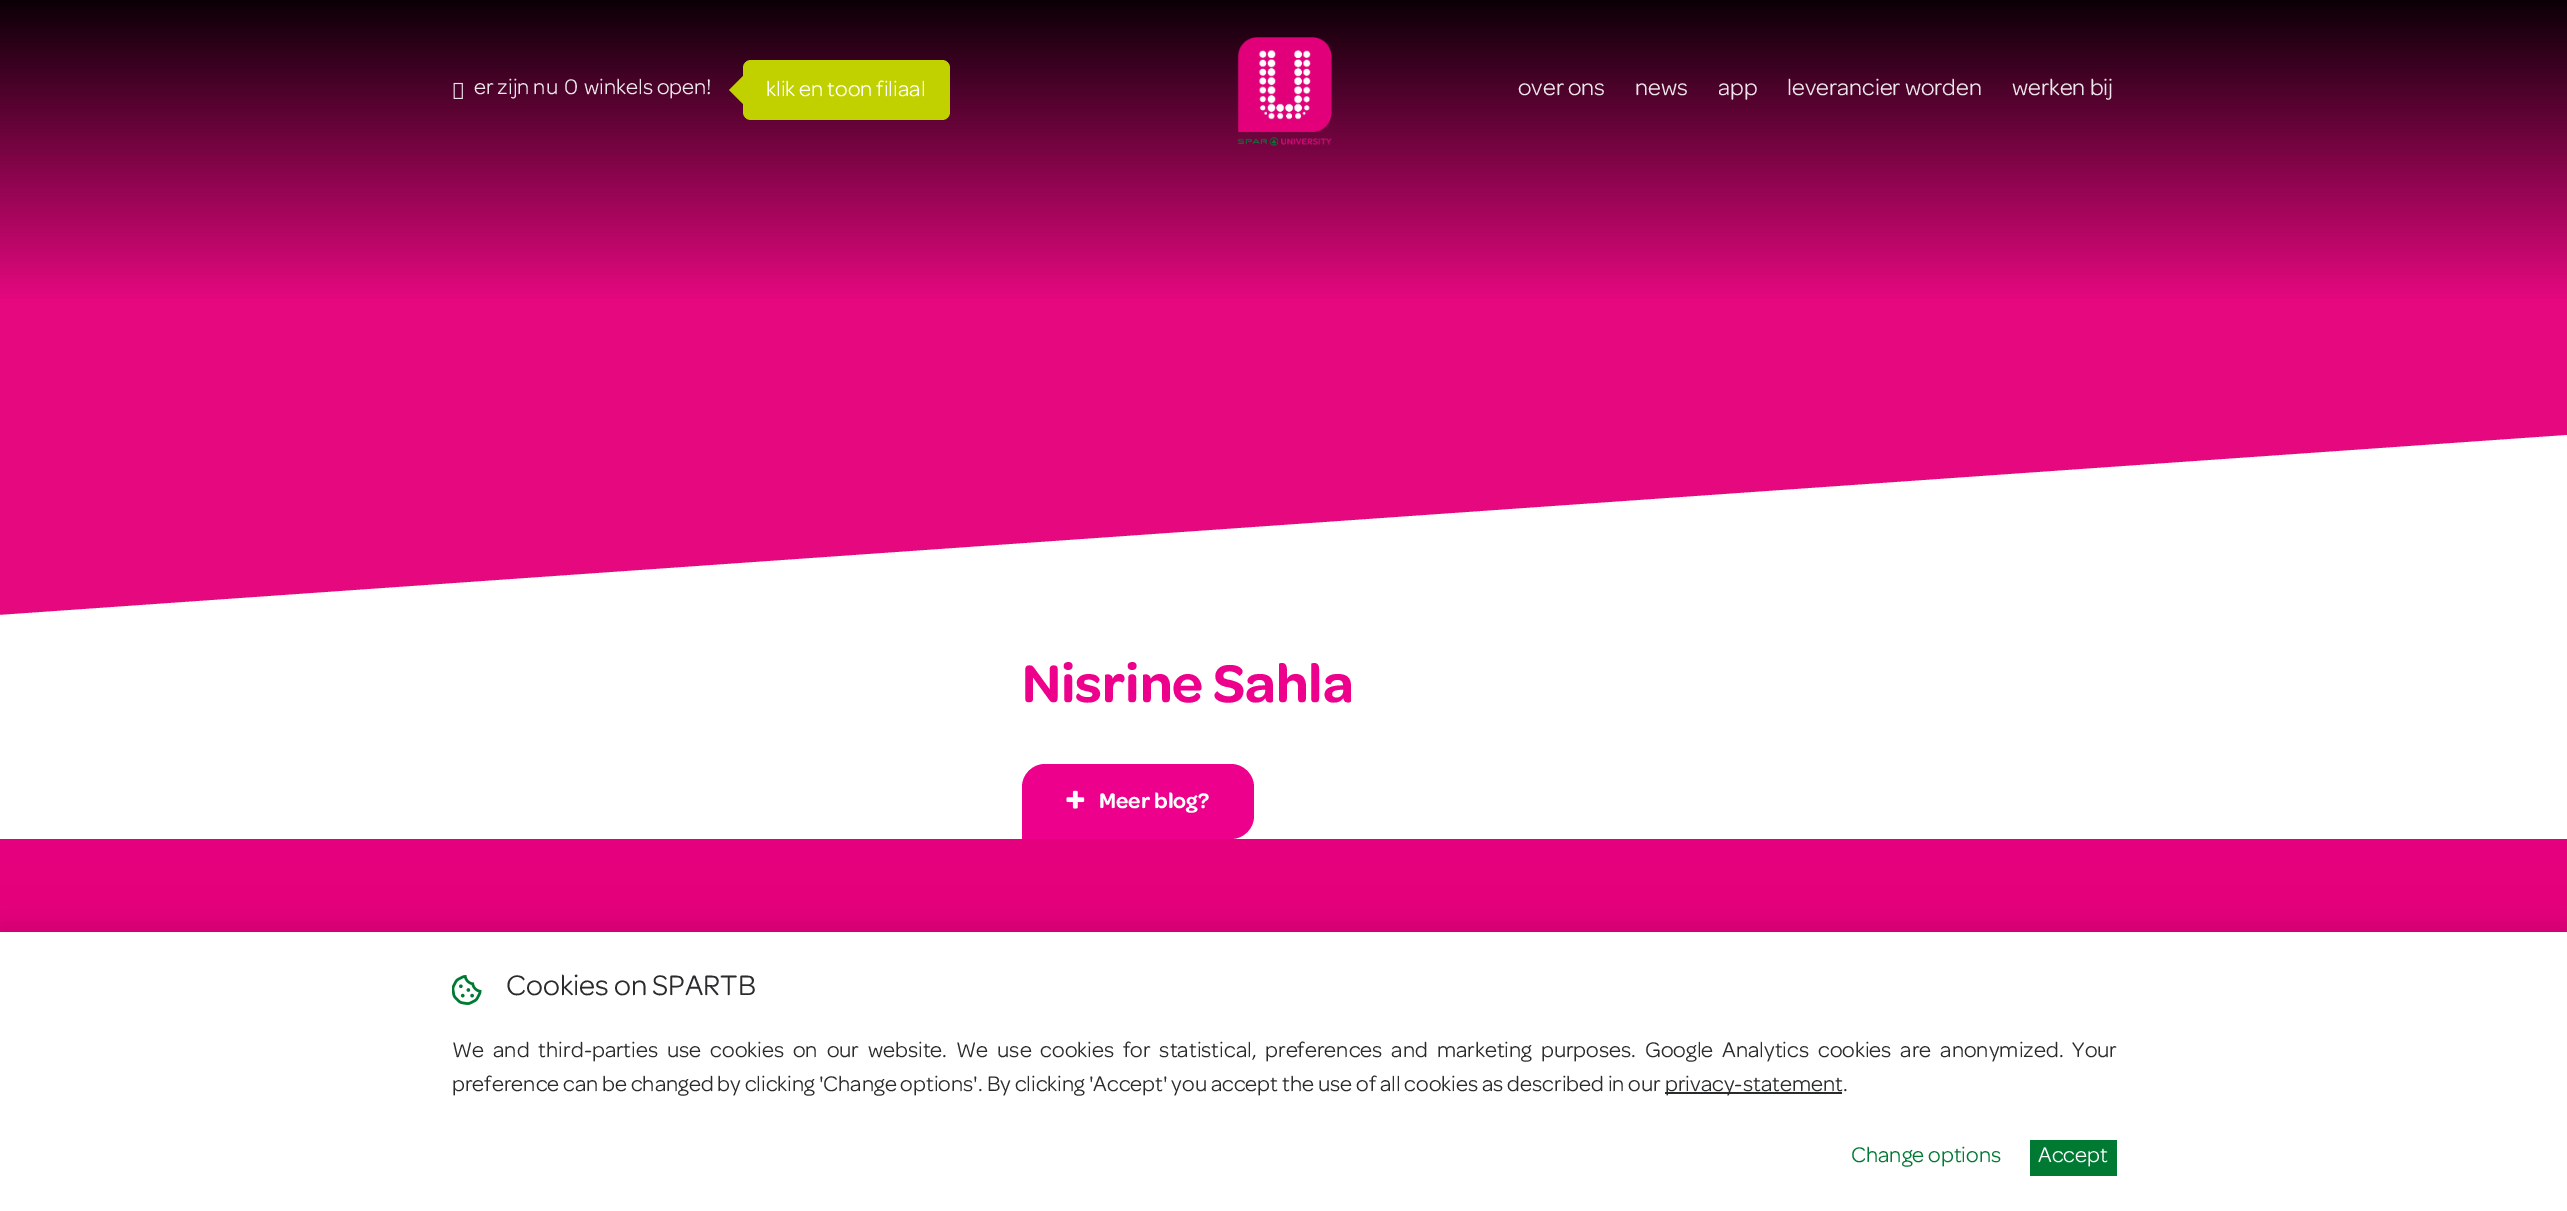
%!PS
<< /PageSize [2567 1211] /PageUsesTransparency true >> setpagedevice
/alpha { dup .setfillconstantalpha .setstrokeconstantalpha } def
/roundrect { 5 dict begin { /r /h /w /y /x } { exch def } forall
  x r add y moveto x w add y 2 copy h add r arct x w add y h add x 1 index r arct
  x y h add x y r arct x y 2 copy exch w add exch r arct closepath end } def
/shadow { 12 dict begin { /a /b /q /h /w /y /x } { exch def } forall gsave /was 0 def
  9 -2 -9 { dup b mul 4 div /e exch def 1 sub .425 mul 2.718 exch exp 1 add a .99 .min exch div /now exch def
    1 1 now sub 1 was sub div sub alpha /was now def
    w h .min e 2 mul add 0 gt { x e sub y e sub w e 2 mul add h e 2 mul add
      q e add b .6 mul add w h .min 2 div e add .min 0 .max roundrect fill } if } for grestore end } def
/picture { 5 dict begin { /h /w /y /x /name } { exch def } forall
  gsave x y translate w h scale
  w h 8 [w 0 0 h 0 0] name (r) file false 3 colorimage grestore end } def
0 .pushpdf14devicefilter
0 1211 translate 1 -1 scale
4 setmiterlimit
1 setgray
0 0 2567 1211 rectfill
gsave newpath 0 0 moveto 2567 0 lineto 2567 300 lineto 0 300 lineto closepath clip newpath
<< /ShadingType 2 /ColorSpace /DeviceRGB /Coords [1284 0 1284 300] /Extend [true true] /Function << /FunctionType 2 /Domain [0 1] /C0 [0.043 0 0.024] /C1 [0.898 0.031 0.498] /N 1 >> >> shfill grestore
(img1.rgb) 453 82 10 17 picture
/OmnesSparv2-Regular [22.5 0 0 -22.5 0 0] selectfont
0.929 0.902 0.918 setrgbcolor
474 94 moveto (er zijn nu) show
564 94 moveto (0) show
584 94 moveto (winkels open!) show
0.757 0.82 0 setrgbcolor
743 60 207 60 8 roundrect fill
newpath 744 75 moveto 744 105 lineto 729 90 lineto closepath fill
1 setgray
766 96 moveto (klik en toon filiaal) show
(img2.rgb) 1237 37 95 109 picture
/OmnesSparv2-Regular [24 0 0 -24 0 0] selectfont
0.929 0.902 0.918 setrgbcolor
1518 95 moveto (over ons) show
1635 95 moveto (news) show
1718 95 moveto (app) show
1787 95 moveto (leverancier worden) show
2012 95 moveto (werken bij) show
0.898 0.031 0.494 setrgbcolor
0 300 2567 315 rectfill
gsave
0 0 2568 660 rectclip
1 setgray
newpath 0 615 moveto 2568 435 lineto 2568 660 lineto 0 840 lineto closepath fill
grestore
/OmnesSparv2-SemiBold [56.25 0 0 -56.25 0 0] selectfont
0.925 0 0.549 setrgbcolor
1022 702 moveto (Nisrine Sahla) show
newpath 1045 764 moveto 1231 764 lineto 1243.5 764 1254 774.5 1254 787 curveto 1254 816 lineto 1254 828.5 1243.5 839 1231 839 curveto 1022 839 lineto 1022 787 lineto 1022 774.5 1032.5 764 1045 764 curveto closepath fill
(img3.rgb) 1066 790 19 19 picture
/OmnesSparv2-SemiBold [22.5 0 0 -22.5 0 0] selectfont
1 setgray
1099 808 moveto (Meer blog?) show
gsave newpath 0 839 moveto 2567 839 lineto 2567 932 lineto 0 932 lineto closepath clip newpath
<< /ShadingType 2 /ColorSpace /DeviceRGB /Coords [1284 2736 1284 839] /Extend [true true] /Function << /FunctionType 3 /Domain [0 1] /Functions [<< /FunctionType 2 /Domain [0 1] /C0 [1 0 0.024] /C1 [0.953 0 0.235] /N 1 >> << /FunctionType 2 /Domain [0 1] /C0 [0.953 0 0.235] /C1 [0.898 0 0.49] /N 1 >> << /FunctionType 2 /Domain [0 1] /C0 [0.898 0 0.49] /C1 [0.898 0 0.49] /N 1 >>] /Bounds [0.17 0.99] /Encode [0 1 0 1 0 1] >> >> shfill grestore
0 setgray
0 924 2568 281 0 11 0.1 shadow
1 setgray
0 932 2567 279 rectfill
(img4.rgb) 452 975 30 30 picture
/OmnesSparv2-Regular [30 0 0 -30 0 0] selectfont
0.161 0.169 0.173 setrgbcolor
506 995 moveto (Cookies on SPARTB) show
/OmnesSparv2-Regular [22.5 0 0 -22.5 0 0] selectfont
452 1057 moveto 5 0 32 (We and third-parties use cookies on our website. We use cookies for statistical, preferences and marketing purposes. Google Analytics cookies are anonymized. Your) widthshow
452 1091 moveto (preference can be changed by clicking 'Change options'. By clicking 'Accept' you accept the use of all cookies as described in our) show
1665 1092 177 2 rectfill
1665 1091 moveto (privacy-statement.) show
0 0.475 0.2 setrgbcolor
1851 1162 moveto (Change options) show
2030 1140 87 36 rectfill
1 setgray
2038 1162 moveto (Accept) show
.poppdf14devicefilter showpage
